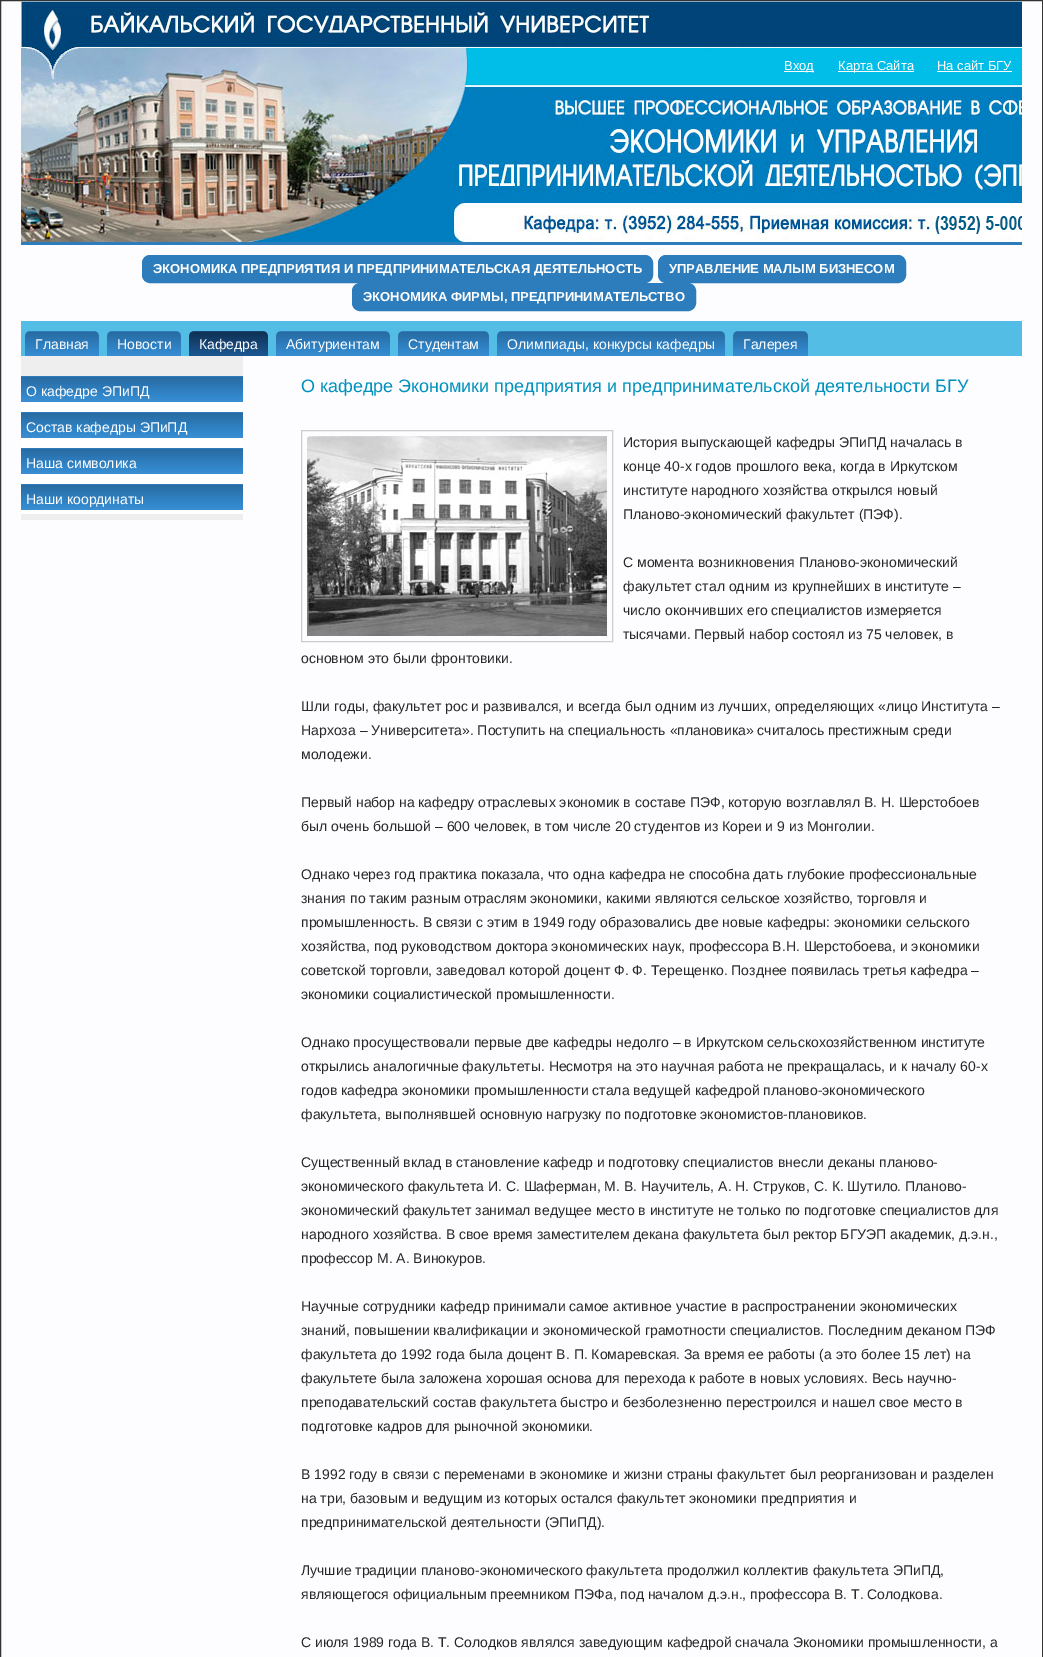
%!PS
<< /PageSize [1043 1657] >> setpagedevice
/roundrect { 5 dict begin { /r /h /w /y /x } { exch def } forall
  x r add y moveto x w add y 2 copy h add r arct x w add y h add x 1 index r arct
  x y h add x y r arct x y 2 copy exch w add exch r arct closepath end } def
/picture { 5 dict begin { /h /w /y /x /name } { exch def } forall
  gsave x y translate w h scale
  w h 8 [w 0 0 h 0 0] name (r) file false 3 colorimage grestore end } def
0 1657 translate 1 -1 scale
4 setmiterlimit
0.992 0.992 1 setrgbcolor
0 0 1043 1657 rectfill
0.2 setgray
0.5 0.5 1042 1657 rectstroke
(img1.rgb) 21 1 1001 241 picture
0.176 0.49 0.737 setrgbcolor
21 242 1001 3 rectfill
1 setgray
784 71 30 1 rectfill
/LiberationSans-Regular [13 0 0 -13 0 0] selectfont
784 70 moveto (Вход) show
838 71 76 1 rectfill
838 70 moveto (Карта Сайта) show
937 70 moveto (На сайт БГУ) show
937 71 75 1 rectfill
0.176 0.49 0.737 setrgbcolor
142.5 255.5 510 27 7.5 roundrect gsave fill grestore
stroke
/LiberationSans-Bold [13 0 0 -13 0 0] selectfont
1 setgray
153 273 moveto (ЭКОНОМИКА ПРЕДПРИЯТИЯ И ПРЕДПРИНИМАТЕЛЬСКАЯ ДЕЯТЕЛЬНОСТЬ) show
0.176 0.49 0.737 setrgbcolor
658.5 255.5 247 27 7.5 roundrect gsave fill grestore
stroke
1 setgray
669 273 moveto (УПРАВЛЕНИЕ МАЛЫМ БИЗНЕСОМ) show
0.176 0.49 0.737 setrgbcolor
352.5 283.5 343 27 7.5 roundrect gsave fill grestore
stroke
1 setgray
363 301 moveto (ЭКОНОМИКА ФИРМЫ, ПРЕДПРИНИМАТЕЛЬСТВО) show
0.325 0.741 0.898 setrgbcolor
21 321 1001 35 rectfill
(img2.rgb) 25 331 74 25 picture
/LiberationSans-Regular [14 0 0 -14 0 0] selectfont
1 setgray
35 349 moveto (Главная) show
(img2.rgb) 107 331 74 25 picture
117 349 moveto (Новости) show
(img3.rgb) 189 331 79 25 picture
199 349 moveto (Кафедра) show
(img4.rgb) 276 331 114 25 picture
286 349 moveto (Абитуриентам) show
(img5.rgb) 398 331 91 25 picture
408 349 moveto (Студентам) show
(img6.rgb) 497 331 228 25 picture
507 349 moveto (Олимпиады, конкурсы кафедры) show
(img7.rgb) 733 331 75 25 picture
743 349 moveto (Галерея) show
0.933 setgray
21 356 222 164 rectfill
1 setgray
21 402 222 112 rectfill
(img8.rgb) 21 376 222 26 picture
26 396 moveto (О кафедре ЭПиПД) show
(img8.rgb) 21 412 222 26 picture
26 432 moveto (Состав кафедры ЭПиПД) show
(img8.rgb) 21 448 222 26 picture
26 468 moveto (Наша символика) show
(img8.rgb) 21 484 222 26 picture
26 504 moveto (Наши координаты) show
/LiberationSans-Regular [18 0 0 -18 0 0] selectfont
0 0.569 0.737 setrgbcolor
301 392 moveto (О кафедре Экономики предприятия и предпринимательской деятельности БГУ) show
0.8 setgray
301.5 430.5 311 211 rectstroke
(img9.rgb) 307 436 300 200 picture
/LiberationSans-Regular [14 0 0 -14 0 0] selectfont
0.157 setgray
623 447 moveto (История выпускающей кафедры ЭПиПД началась в) show
623 471 moveto (конце 40-х годов прошлого века, когда в Иркутском) show
623 495 moveto (институте народного хозяйства открылся новый) show
623 519 moveto (Планово-экономический факультет \(ПЭФ\).) show
623 567 moveto (С момента возникновения Планово-экономический) show
623 591 moveto (факультет стал одним из крупнейших в институте –) show
623 615 moveto (число окончивших его специалистов измеряется) show
623 639 moveto (тысячами. Первый набор состоял из 75 человек, в) show
301 663 moveto (основном это были фронтовики.) show
301 711 moveto (Шли годы, факультет рос и развивался, и всегда был одним из лучших, определяющих «лицо Института –) show
301 735 moveto (Нархоза – Университета». Поступить на специальность «плановика» считалось престижным среди) show
301 759 moveto (молодежи.) show
301 807 moveto (Первый набор на кафедру отраслевых экономик в составе ПЭФ, которую возглавлял В. Н. Шерстобоев) show
301 831 moveto (был очень большой – 600 человек, в том числе 20 студентов из Кореи и 9 из Монголии.) show
301 879 moveto (Однако через год практика показала, что одна кафедра не способна дать глубокие профессиональные) show
301 903 moveto (знания по таким разным отраслям экономики, какими являются сельское хозяйство, торговля и) show
301 927 moveto (промышленность. В связи с этим в 1949 году образовались две новые кафедры: экономики сельского) show
301 951 moveto (хозяйства, под руководством доктора экономических наук, профессора В.Н. Шерстобоева, и экономики) show
301 975 moveto (советской торговли, заведовал которой доцент Ф. Ф. Терещенко. Позднее появилась третья кафедра –) show
301 999 moveto (экономики социалистической промышленности.) show
301 1047 moveto (Однако просуществовали первые две кафедры недолго – в Иркутском сельскохозяйственном институте) show
301 1071 moveto (открылись аналогичные факультеты. Несмотря на это научная работа не прекращалась, и к началу 60-х) show
301 1095 moveto (годов кафедра экономики промышленности стала ведущей кафедрой планово-экономического) show
301 1119 moveto (факультета, выполнявшей основную нагрузку по подготовке экономистов-плановиков.) show
301 1167 moveto (Существенный вклад в становление кафедр и подготовку специалистов внесли деканы планово-) show
301 1191 moveto (экономического факультета И. С. Шаферман, М. В. Научитель, А. Н. Струков, С. К. Шутило. Планово-) show
301 1215 moveto (экономический факультет занимал ведущее место в институте не только по подготовке специалистов для) show
301 1239 moveto (народного хозяйства. В свое время заместителем декана факультета был ректор БГУЭП академик, д.э.н.,) show
301 1263 moveto (профессор М. А. Винокуров.) show
301 1311 moveto (Научные сотрудники кафедр принимали самое активное участие в распространении экономических) show
301 1335 moveto (знаний, повышении квалификации и экономической грамотности специалистов. Последним деканом ПЭФ) show
301 1359 moveto (факультета до 1992 года была доцент В. П. Комаревская. За время ее работы \(а это более 15 лет\) на) show
301 1383 moveto (факультете была заложена хорошая основа для перехода к работе в новых условиях. Весь научно-) show
301 1407 moveto (преподавательский состав факультета быстро и безболезненно перестроился и нашел свое место в) show
301 1431 moveto (подготовке кадров для рыночной экономики.) show
301 1479 moveto (В 1992 году в связи с переменами в экономике и жизни страны факультет был реорганизован и разделен) show
301 1503 moveto (на три, базовым и ведущим из которых остался факультет экономики предприятия и) show
301 1527 moveto (предпринимательской деятельности \(ЭПиПД\).) show
301 1575 moveto (Лучшие традиции планово-экономического факультета продолжил коллектив факультета ЭПиПД,) show
301 1599 moveto (являющегося официальным преемником ПЭФа, под началом д.э.н., профессора В. Т. Солодкова.) show
301 1647 moveto (С июля 1989 года В. Т. Солодков являлся заведующим кафедрой сначала Экономики промышленности, а) show
showpage
